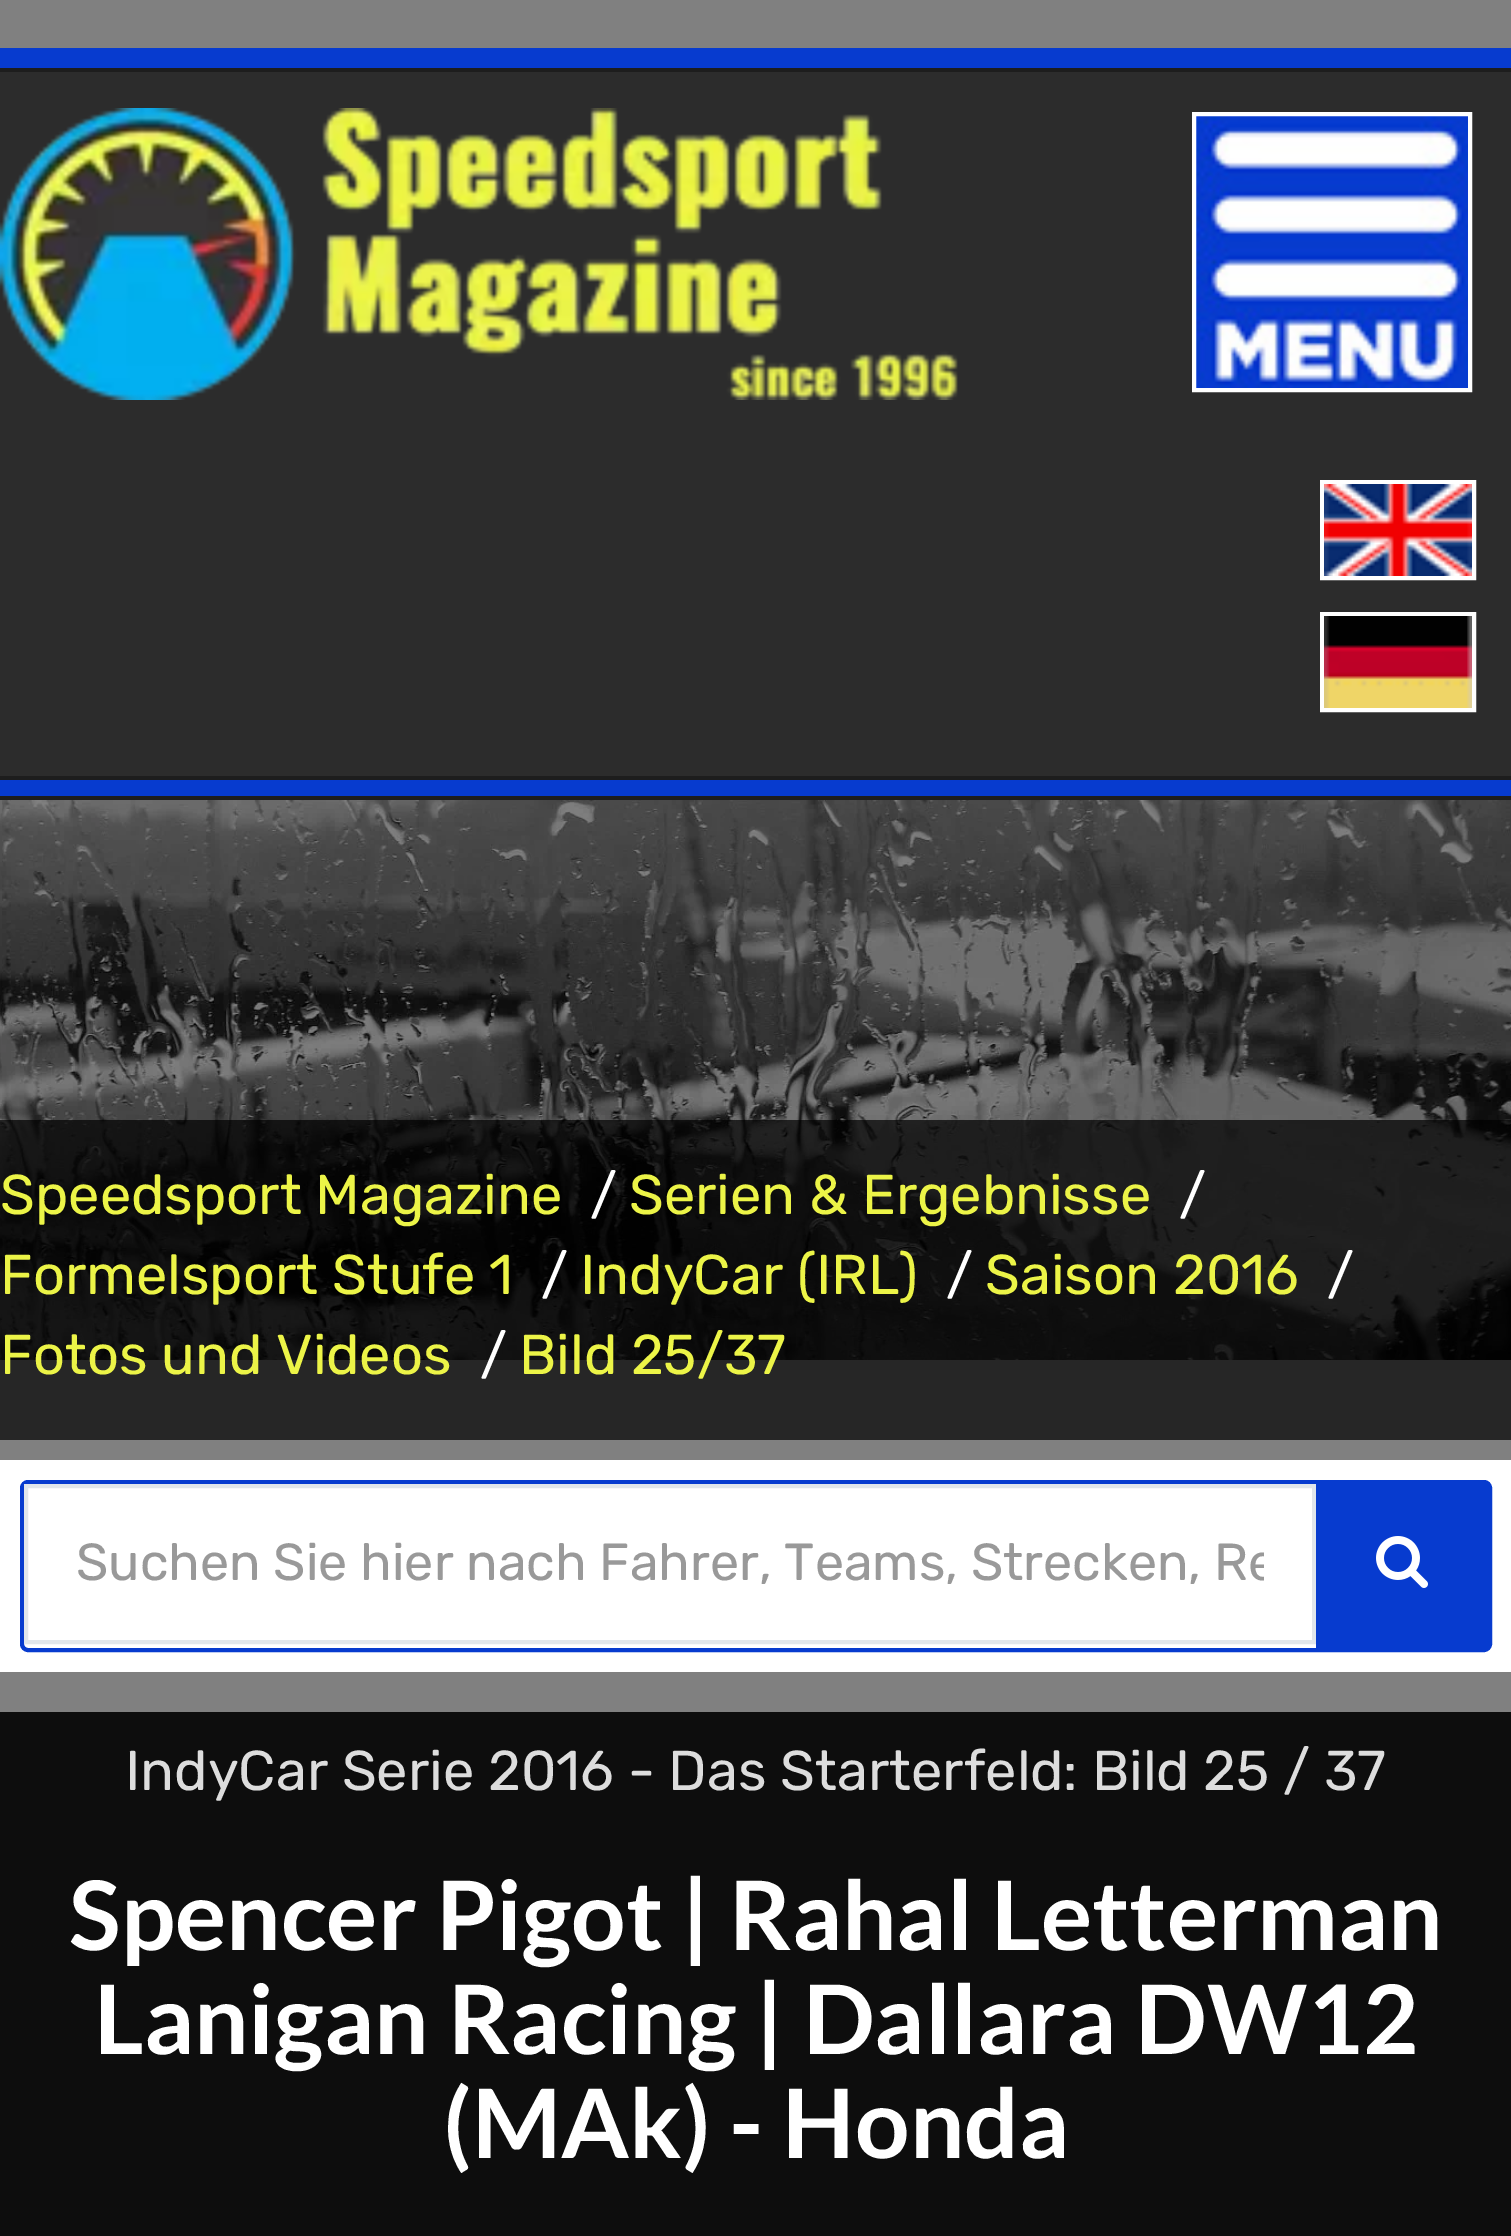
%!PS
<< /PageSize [1511 2236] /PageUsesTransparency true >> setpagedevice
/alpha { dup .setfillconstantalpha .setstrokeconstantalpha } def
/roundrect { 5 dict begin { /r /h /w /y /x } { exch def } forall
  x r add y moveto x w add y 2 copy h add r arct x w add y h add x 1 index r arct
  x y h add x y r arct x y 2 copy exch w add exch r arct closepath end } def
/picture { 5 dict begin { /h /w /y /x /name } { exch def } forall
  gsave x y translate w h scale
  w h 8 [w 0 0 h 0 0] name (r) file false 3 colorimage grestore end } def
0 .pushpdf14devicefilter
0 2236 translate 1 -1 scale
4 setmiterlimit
0.502 setgray
0 0 1511 2236 rectfill
0.027 0.231 0.812 setrgbcolor
0 48 1511 20 rectfill
0.114 setgray
0 68 1511 4 rectfill
0.173 setgray
0 72 1511 704 rectfill
(img1.rgb) 0 108 958 292 picture
(img2.rgb) 1196 116 272 272 picture
1 setgray
4 setlinewidth
1194 114 276 276 rectstroke
1322 482 152 96 rectstroke
(img3.rgb) 1324 484 148 92 picture
1322 614 152 96 rectstroke
(img4.rgb) 1324 616 148 92 picture
0.027 0.231 0.812 setrgbcolor
0 780 1511 16 rectfill
0.114 setgray
0 776 1511 4 rectfill
0 796 1511 4 rectfill
(img5.rgb) 0 800 1511 560 picture
0.7 alpha
0 setgray
0 1120 1511 320 rectfill
/Rubik-Light [56 0 0 -56 0 0] selectfont
1 alpha
0.925 0.957 0.278 setrgbcolor
0 1214 moveto (Speedsport Magazine) show
1 setgray
590 1214 moveto (/) show
0.925 0.957 0.278 setrgbcolor
629 1214 moveto (Serien & Ergebnisse) show
1 setgray
1179 1214 moveto (/) show
0.925 0.957 0.278 setrgbcolor
0 1294 moveto (Formelsport Stufe 1) show
1 setgray
541 1294 moveto (/) show
0.925 0.957 0.278 setrgbcolor
580 1294 moveto (IndyCar \(IRL\)) show
1 setgray
946 1294 moveto (/) show
0.925 0.957 0.278 setrgbcolor
985 1294 moveto (Saison 2016) show
1 setgray
1327 1294 moveto (/) show
0.925 0.957 0.278 setrgbcolor
0 1374 moveto (Fotos und Videos) show
1 setgray
480 1374 moveto (/) show
0.925 0.957 0.278 setrgbcolor
519 1374 moveto (Bild 25/37) show
1 setgray
0 1460 1511 212 rectfill
0.027 0.231 0.812 setrgbcolor
22 1482 1468 168 6 roundrect stroke
0.882 0.902 0.922 setrgbcolor
26 1486 1288 156 rectstroke
gsave
76 1532 1188 60 rectclip
/Rubik-Light [52 0 0 -52 0 0] selectfont
0.6 setgray
76 1580 moveto (Suchen Sie hier nach Fahrer, Teams, Strecken, Re) show
grestore
0.027 0.231 0.812 setrgbcolor
1316 1484 172 164 rectfill
(img6.rgb) 1376 1536 52 52 picture
0.051 setgray
0 1712 1511 524 rectfill
0.867 setgray
125 1790 moveto (IndyCar Serie 2016 - Das Starterfeld: Bild 25 / 37) show
/Lato-Bold [96 0 0 -96 0 0] selectfont
1 setgray
69 1950 moveto (Spencer Pigot | Rahal Letterman) show
94 2054 moveto (Lanigan Racing | Dallara DW12) show
443 2158 moveto (\(MAk\) - Honda) show
.poppdf14devicefilter showpage
